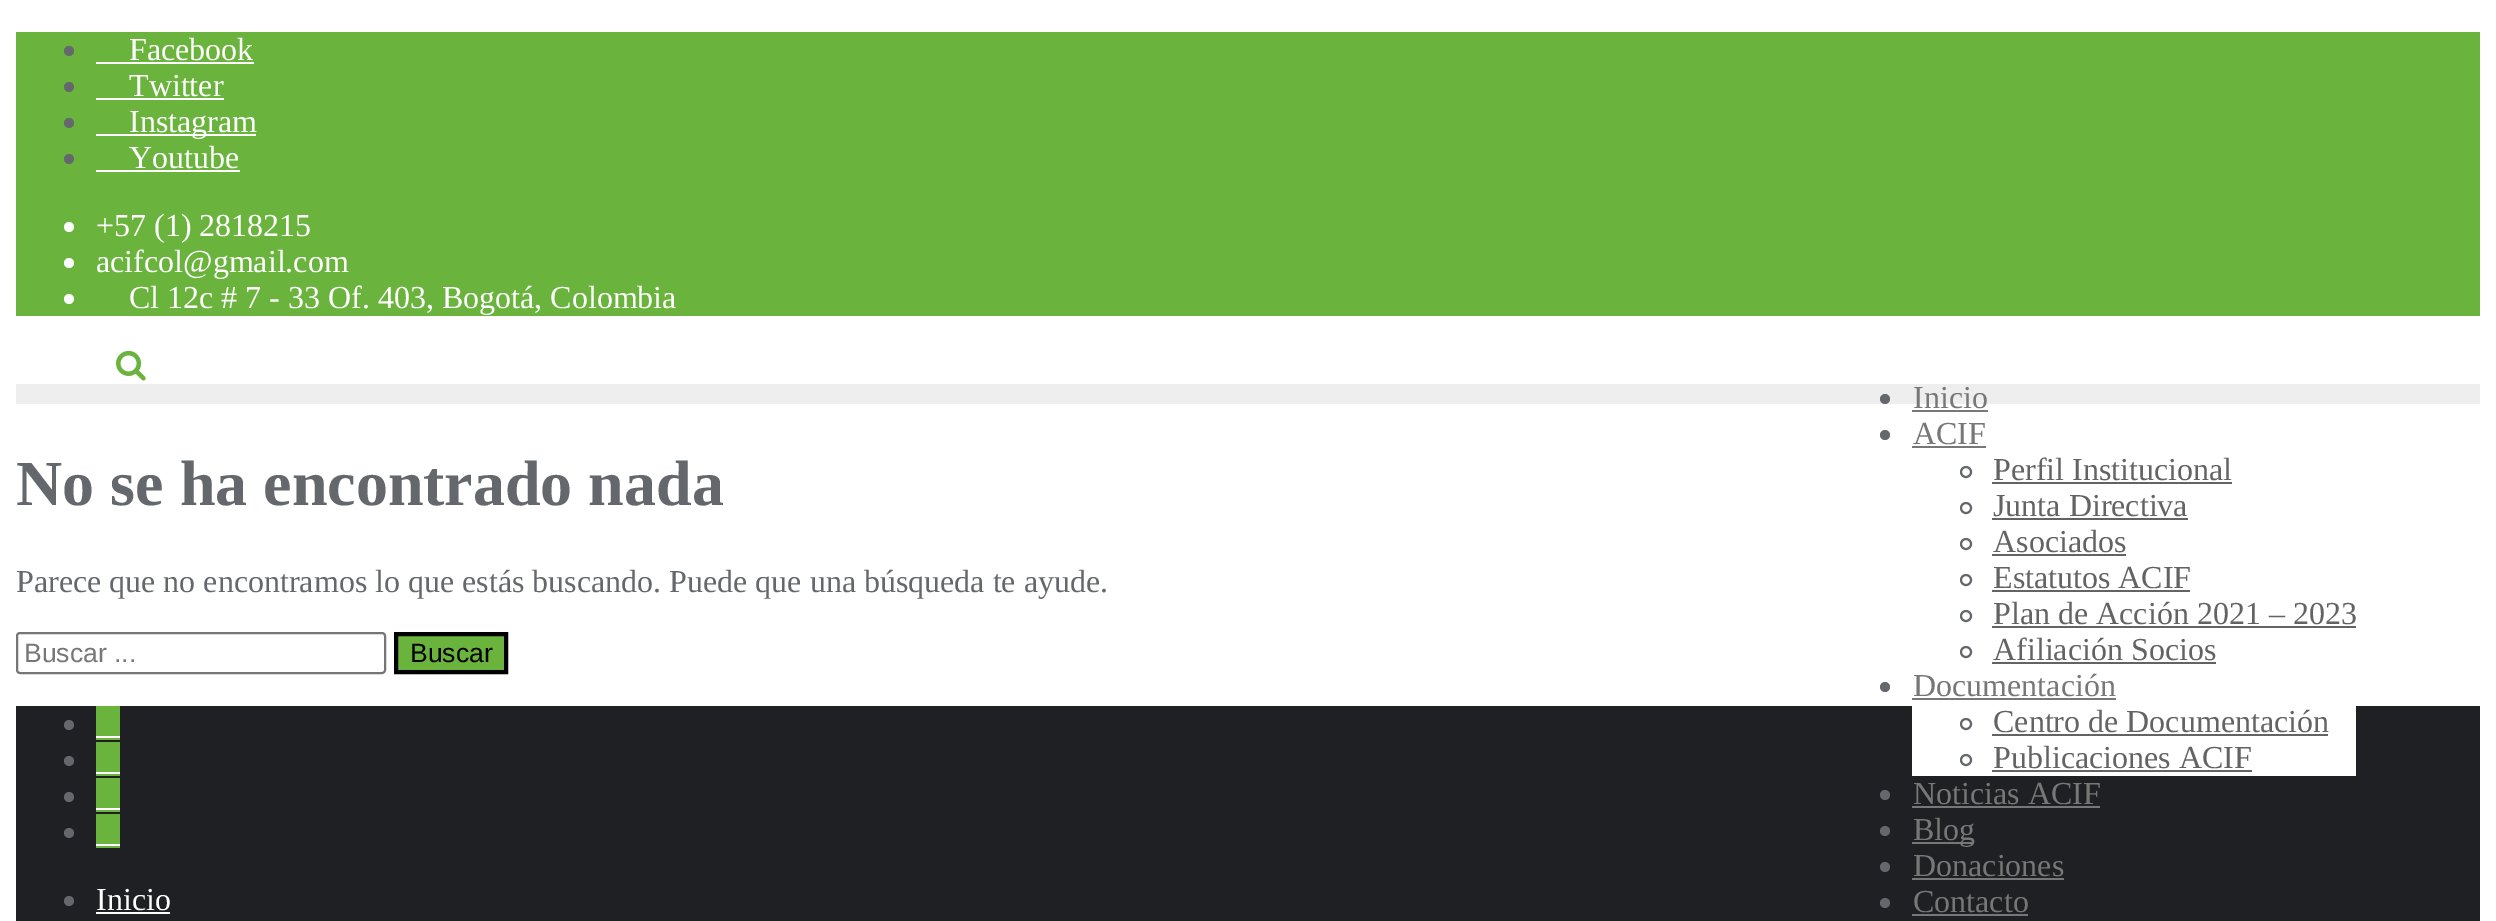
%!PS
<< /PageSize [2496 921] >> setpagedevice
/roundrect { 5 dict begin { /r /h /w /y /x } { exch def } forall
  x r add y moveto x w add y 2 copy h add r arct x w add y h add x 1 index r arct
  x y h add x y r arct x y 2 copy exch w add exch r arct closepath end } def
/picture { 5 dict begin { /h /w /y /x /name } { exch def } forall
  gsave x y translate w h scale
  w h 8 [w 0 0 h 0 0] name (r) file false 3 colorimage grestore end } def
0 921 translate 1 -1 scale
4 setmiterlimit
1 setgray
0 0 2496 921 rectfill
0.933 setgray
16 384 2464 20 rectfill
0.416 0.706 0.243 setrgbcolor
16 32 2464 284 rectfill
0.392 0.408 0.427 setrgbcolor
newpath 69 51 5 0 360 arc closepath fill
/LiberationSerif-Regular [32 0 0 -32 0 0] selectfont
1 setgray
129 60 moveto (Facebook) show
96 62 158 2 rectfill
0.392 0.408 0.427 setrgbcolor
newpath 69 87 5 0 360 arc closepath fill
1 setgray
129 96 moveto (Twitter) show
96 98 128 2 rectfill
0.392 0.408 0.427 setrgbcolor
newpath 69 123 5 0 360 arc closepath fill
1 setgray
96 134 160 2 rectfill
129 132 moveto (Instagram) show
0.392 0.408 0.427 setrgbcolor
newpath 69 159 5 0 360 arc closepath fill
1 setgray
129 168 moveto (Youtube) show
96 170 144 2 rectfill
newpath 69 227 5 0 360 arc closepath fill
96 236 moveto (+57 \(1\) 2818215) show
newpath 69 263 5 0 360 arc closepath fill
96 272 moveto (acifcol@gmail.com) show
newpath 69 299 5 0 360 arc closepath fill
129 308 moveto (Cl 12c # 7 - 33 Of. 403, Bogotá, Colombia) show
(img1.rgb) 116 350 30 31 picture
0.392 0.408 0.427 setrgbcolor
newpath 1885 399 5 0 360 arc closepath fill
0.467 setgray
1913 408 moveto (Inicio) show
1912 410 76 2 rectfill
0.392 0.408 0.427 setrgbcolor
newpath 1885 435 5 0 360 arc closepath fill
0.467 setgray
1913 444 moveto (ACIF) show
1912 446 74 2 rectfill
0.392 0.408 0.427 setrgbcolor
2 setlinewidth
newpath 1966 472 5 0 360 arc closepath stroke
0.388 setgray
1993 480 moveto (Perfil Institucional) show
1992 482 240 2 rectfill
0.392 0.408 0.427 setrgbcolor
newpath 1966 508 5 0 360 arc closepath stroke
0.388 setgray
1993 516 moveto (Junta Directiva) show
1992 518 196 2 rectfill
0.392 0.408 0.427 setrgbcolor
newpath 1966 544 5 0 360 arc closepath stroke
0.388 setgray
1993 552 moveto (Asociados) show
1992 554 134 2 rectfill
0.392 0.408 0.427 setrgbcolor
newpath 1966 580 5 0 360 arc closepath stroke
0.388 setgray
1993 588 moveto (Estatutos ACIF) show
1992 590 198 2 rectfill
0.392 0.408 0.427 setrgbcolor
newpath 1966 616 5 0 360 arc closepath stroke
0.388 setgray
1993 624 moveto (Plan de Acción 2021 – 2023) show
1992 626 364 2 rectfill
0.392 0.408 0.427 setrgbcolor
newpath 1966 652 5 0 360 arc closepath stroke
0.388 setgray
1993 660 moveto (Afiliación Socios) show
1992 662 224 2 rectfill
0.392 0.408 0.427 setrgbcolor
newpath 1885 687 5 0 360 arc closepath fill
0.467 setgray
1913 696 moveto (Documentación) show
1912 698 204 2 rectfill
0.122 0.125 0.141 setrgbcolor
16 706 2464 215 rectfill
1 setgray
1912 706 444 70 rectfill
0.392 0.408 0.427 setrgbcolor
newpath 1966 724 5 0 360 arc closepath stroke
0.388 setgray
1993 732 moveto (Centro de Documentación) show
1992 734 336 2 rectfill
0.392 0.408 0.427 setrgbcolor
newpath 1966 760 5 0 360 arc closepath stroke
0.388 setgray
1993 768 moveto (Publicaciones ACIF) show
1992 770 260 2 rectfill
0.392 0.408 0.427 setrgbcolor
newpath 1885 795 5 0 360 arc closepath fill
0.467 setgray
1913 804 moveto (Noticias ACIF) show
1912 806 188 2 rectfill
0.392 0.408 0.427 setrgbcolor
newpath 1885 831 5 0 360 arc closepath fill
0.467 setgray
1912 842 62 2 rectfill
1913 840 moveto (Blog) show
0.392 0.408 0.427 setrgbcolor
newpath 1885 867 5 0 360 arc closepath fill
0.467 setgray
1913 876 moveto (Donaciones) show
1912 878 152 2 rectfill
0.392 0.408 0.427 setrgbcolor
newpath 1885 903 5 0 360 arc closepath fill
0.467 setgray
1913 912 moveto (Contacto) show
1912 914 116 2 rectfill
/LiberationSerif-Bold [64 0 0 -64 0 0] selectfont
0.392 0.408 0.427 setrgbcolor
16 505 moveto (No se ha encontrado nada) show
/LiberationSerif-Regular [32 0 0 -32 0 0] selectfont
16 592 moveto (Parece que no encontramos lo que estás buscando. Puede que una búsqueda te ayude.) show
0.463 setgray
17 633 368 40 3 roundrect stroke
/LiberationSans-Regular [26.5 0 0 -26.5 0 0] selectfont
0.467 setgray
24 662 moveto (Buscar ...) show
0.416 0.706 0.243 setrgbcolor
newpath 396 634 moveto 506 634 lineto 506 672 lineto 396 672 lineto closepath gsave fill grestore
0 setgray
4 setlinewidth
stroke
410 662 moveto (Buscar) show
0.392 0.408 0.427 setrgbcolor
newpath 69 725 5 0 360 arc closepath fill
0.416 0.706 0.243 setrgbcolor
96 706 24 34 rectfill
1 setgray
96 736 24 2 rectfill
0.392 0.408 0.427 setrgbcolor
newpath 69 761 5 0 360 arc closepath fill
0.416 0.706 0.243 setrgbcolor
96 742 24 34 rectfill
1 setgray
96 772 24 2 rectfill
0.392 0.408 0.427 setrgbcolor
newpath 69 797 5 0 360 arc closepath fill
0.416 0.706 0.243 setrgbcolor
96 778 24 34 rectfill
1 setgray
96 808 24 2 rectfill
0.392 0.408 0.427 setrgbcolor
newpath 69 833 5 0 360 arc closepath fill
0.416 0.706 0.243 setrgbcolor
96 814 24 34 rectfill
1 setgray
96 844 24 2 rectfill
0.392 0.408 0.427 setrgbcolor
newpath 69 901 5 0 360 arc closepath fill
/LiberationSerif-Regular [32 0 0 -32 0 0] selectfont
1 setgray
96 910 moveto (Inicio) show
96 912 74 2 rectfill
showpage
